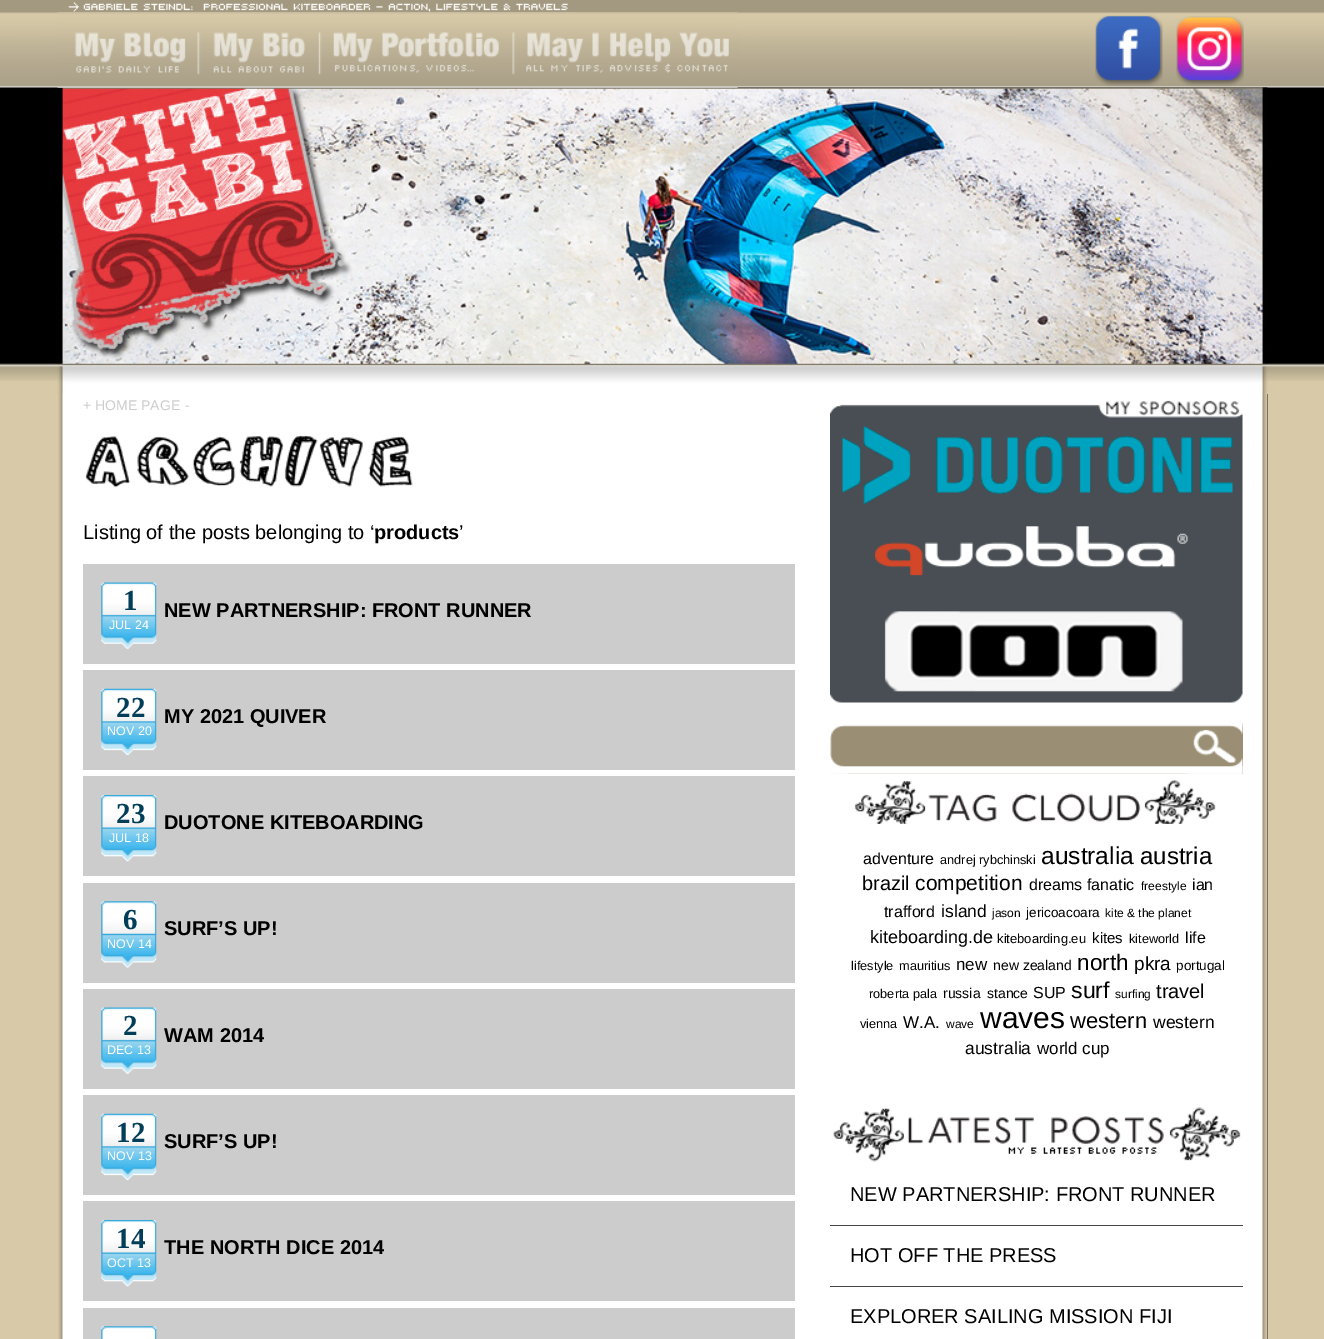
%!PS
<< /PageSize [1324 1339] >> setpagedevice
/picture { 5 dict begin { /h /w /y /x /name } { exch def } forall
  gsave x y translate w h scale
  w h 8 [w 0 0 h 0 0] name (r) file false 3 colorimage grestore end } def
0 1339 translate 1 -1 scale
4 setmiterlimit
0.847 0.792 0.659 setrgbcolor
0 0 1324 1339 rectfill
(img1.rgb) 0 0 1324 381 picture
(img2.rgb) 57 0 518 13 picture
(img10.rgb) 57 87 1211 308 picture
(img3.rgb) 57 12 681 76 picture
(img4.rgb) 57 12 142 76 picture
(img5.rgb) 198 12 122 76 picture
(img6.rgb) 320 12 194 76 picture
(img7.rgb) 513 12 225 76 picture
(img8.rgb) 1095 15 68 72 picture
(img9.rgb) 1176 16 68 71 picture
0.129 setgray
1267 394 1 945 rectfill
(img11.rgb) 58 394 1210 945 picture
/LiberationSans-Regular [14 0 0 -14 0 0] selectfont
0.8 setgray
83 410 moveto (+ HOME PAGE) show
185 410 moveto (-) show
(img12.rgb) 85 435 328 53 picture
/LiberationSans-Regular [20 0 0 -20 0 0] selectfont
0 setgray
83 539 moveto (Listing of the posts belonging to ‘) show
/LiberationSans-Bold [20 0 0 -20 0 0] selectfont
374 539 moveto (products) show
/LiberationSans-Regular [20 0 0 -20 0 0] selectfont
459 539 moveto (’) show
0.8 setgray
83 564 712 100 rectfill
(img13.rgb) 101 582 56 67 picture
/LiberationSerif-Bold [29 0 0 -29 0 0] selectfont
0.008 0.243 0.349 setrgbcolor
123 610 moveto (1) show
/LiberationSans-Regular [12.5 0 0 -12.5 0 0] selectfont
1 setgray
109 629 moveto (JUL 24) show
/LiberationSans-Bold [20 0 0 -20 0 0] selectfont
0 setgray
164 617 moveto (NEW PARTNERSHIP: FRONT RUNNER) show
0.8 setgray
83 670 712 100 rectfill
(img14.rgb) 101 688 56 67 picture
/LiberationSerif-Bold [29 0 0 -29 0 0] selectfont
0.008 0.243 0.349 setrgbcolor
116 717 moveto (22) show
/LiberationSans-Regular [12.5 0 0 -12.5 0 0] selectfont
1 setgray
107 735 moveto (NOV 20) show
/LiberationSans-Bold [20 0 0 -20 0 0] selectfont
0 setgray
164 723 moveto (MY 2021 QUIVER) show
0.8 setgray
83 776 712 100 rectfill
(img15.rgb) 101 795 56 67 picture
/LiberationSerif-Bold [29 0 0 -29 0 0] selectfont
0.008 0.243 0.349 setrgbcolor
116 823 moveto (23) show
/LiberationSans-Regular [12.5 0 0 -12.5 0 0] selectfont
1 setgray
109 842 moveto (JUL 18) show
/LiberationSans-Bold [20 0 0 -20 0 0] selectfont
0 setgray
164 829 moveto (DUOTONE KITEBOARDING) show
0.8 setgray
83 883 712 100 rectfill
(img16.rgb) 101 901 56 67 picture
/LiberationSerif-Bold [29 0 0 -29 0 0] selectfont
0.008 0.243 0.349 setrgbcolor
123 929 moveto (6) show
/LiberationSans-Regular [12.5 0 0 -12.5 0 0] selectfont
1 setgray
107 948 moveto (NOV 14) show
/LiberationSans-Bold [20 0 0 -20 0 0] selectfont
0 setgray
164 935 moveto (SURF’S UP!) show
0.8 setgray
83 989 712 100 rectfill
(img17.rgb) 101 1007 56 67 picture
/LiberationSerif-Bold [29 0 0 -29 0 0] selectfont
0.008 0.243 0.349 setrgbcolor
123 1035 moveto (2) show
/LiberationSans-Regular [12.5 0 0 -12.5 0 0] selectfont
1 setgray
107 1054 moveto (DEC 13) show
/LiberationSans-Bold [20 0 0 -20 0 0] selectfont
0 setgray
164 1042 moveto (WAM 2014) show
0.8 setgray
83 1095 712 100 rectfill
(img18.rgb) 101 1113 56 67 picture
/LiberationSerif-Bold [29 0 0 -29 0 0] selectfont
0.008 0.243 0.349 setrgbcolor
116 1142 moveto (12) show
/LiberationSans-Regular [12.5 0 0 -12.5 0 0] selectfont
1 setgray
107 1160 moveto (NOV 13) show
/LiberationSans-Bold [20 0 0 -20 0 0] selectfont
0 setgray
164 1148 moveto (SURF’S UP!) show
0.8 setgray
83 1201 712 100 rectfill
(img15.rgb) 101 1220 56 67 picture
/LiberationSerif-Bold [29 0 0 -29 0 0] selectfont
0.008 0.243 0.349 setrgbcolor
116 1248 moveto (14) show
/LiberationSans-Regular [12.5 0 0 -12.5 0 0] selectfont
1 setgray
107 1267 moveto (OCT 13) show
/LiberationSans-Bold [20 0 0 -20 0 0] selectfont
0 setgray
164 1254 moveto (THE NORTH DICE 2014) show
0.8 setgray
83 1308 712 31 rectfill
(img19.rgb) 101 1326 56 13 picture
(img20.rgb) 830 400 413 303 picture
0.604 0.561 0.455 setrgbcolor
830 723 413 51 rectfill
(img24.rgb) 830 773 413 51 picture
(img21.rgb) 830 723 413 51 picture
(img22.rgb) 830 725 18 49 picture
(img23.rgb) 1187 723 56 51 picture
/LiberationSans-Regular [16 0 0 -16 0 0] selectfont
0 setgray
863 864 moveto (adventure) show
/LiberationSans-Regular [12.75 0 0 -12.75 0 0] selectfont
940 864 moveto (andrej rybchinski) show
/LiberationSans-Regular [24.5 0 0 -24.5 0 0] selectfont
1041 864 moveto (australia) show
/LiberationSans-Regular [24 0 0 -24 0 0] selectfont
1140 864 moveto (austria) show
/LiberationSans-Regular [20 0 0 -20 0 0] selectfont
862 890 moveto (brazil) show
/LiberationSans-Regular [21 0 0 -21 0 0] selectfont
915 890 moveto (competition) show
/LiberationSans-Regular [16 0 0 -16 0 0] selectfont
1029 890 moveto (dreams) show
1087 890 moveto (fanatic) show
/LiberationSans-Regular [12 0 0 -12 0 0] selectfont
1141 890 moveto (freestyle) show
/LiberationSans-Regular [16 0 0 -16 0 0] selectfont
1192 890 moveto (ian) show
884 917 moveto (trafford) show
/LiberationSans-Regular [17.5 0 0 -17.5 0 0] selectfont
941 917 moveto (island) show
/LiberationSans-Regular [12 0 0 -12 0 0] selectfont
992 917 moveto (jason) show
/LiberationSans-Regular [13.5 0 0 -13.5 0 0] selectfont
1026 917 moveto (jericoacoara) show
/LiberationSans-Regular [12 0 0 -12 0 0] selectfont
1105 917 moveto (kite & the planet) show
/LiberationSans-Regular [18 0 0 -18 0 0] selectfont
870 943 moveto (kiteboarding.de) show
/LiberationSans-Regular [13 0 0 -13 0 0] selectfont
997 943 moveto (kiteboarding.eu) show
/LiberationSans-Regular [15 0 0 -15 0 0] selectfont
1092 943 moveto (kites) show
/LiberationSans-Regular [12.75 0 0 -12.75 0 0] selectfont
1129 943 moveto (kiteworld) show
/LiberationSans-Regular [16 0 0 -16 0 0] selectfont
1185 943 moveto (life) show
/LiberationSans-Regular [12.75 0 0 -12.75 0 0] selectfont
851 970 moveto (lifestyle) show
899 970 moveto (mauritius) show
/LiberationSans-Regular [17 0 0 -17 0 0] selectfont
956 970 moveto (new) show
/LiberationSans-Regular [14 0 0 -14 0 0] selectfont
993 970 moveto (new zealand) show
/LiberationSans-Regular [22.5 0 0 -22.5 0 0] selectfont
1077 970 moveto (north) show
/LiberationSans-Regular [19 0 0 -19 0 0] selectfont
1134 970 moveto (pkra) show
/LiberationSans-Regular [13.5 0 0 -13.5 0 0] selectfont
1176 970 moveto (portugal) show
/LiberationSans-Regular [12.75 0 0 -12.75 0 0] selectfont
869 998 moveto (roberta pala) show
/LiberationSans-Regular [14 0 0 -14 0 0] selectfont
943 998 moveto (russia) show
987 998 moveto (stance) show
/LiberationSans-Regular [16 0 0 -16 0 0] selectfont
1033 998 moveto (SUP) show
/LiberationSans-Regular [23 0 0 -23 0 0] selectfont
1071 998 moveto (surf) show
/LiberationSans-Regular [12 0 0 -12 0 0] selectfont
1115 998 moveto (surfing) show
/LiberationSans-Regular [20 0 0 -20 0 0] selectfont
1156 998 moveto (travel) show
/LiberationSans-Regular [12.75 0 0 -12.75 0 0] selectfont
860 1028 moveto (vienna) show
/LiberationSans-Regular [17 0 0 -17 0 0] selectfont
903 1028 moveto (W.A.) show
/LiberationSans-Regular [12 0 0 -12 0 0] selectfont
946 1028 moveto (wave) show
/LiberationSans-Regular [30 0 0 -30 0 0] selectfont
980 1028 moveto (waves) show
/LiberationSans-Regular [22 0 0 -22 0 0] selectfont
1070 1028 moveto (western) show
/LiberationSans-Regular [17.5 0 0 -17.5 0 0] selectfont
1153 1028 moveto (western) show
965 1054 moveto (australia) show
/LiberationSans-Regular [17 0 0 -17 0 0] selectfont
1037 1054 moveto (world cup) show
(img25.rgb) 833 1107 408 55 picture
0.263 0.275 0.286 setrgbcolor
830 1225 413 1 rectfill
/LiberationSans-Regular [20 0 0 -20 0 0] selectfont
0 setgray
850 1201 moveto (NEW PARTNERSHIP: FRONT RUNNER) show
0.263 0.275 0.286 setrgbcolor
830 1286 413 1 rectfill
0 setgray
850 1262 moveto (HOT OFF THE PRESS) show
850 1323 moveto (EXPLORER SAILING MISSION FIJI) show
showpage
